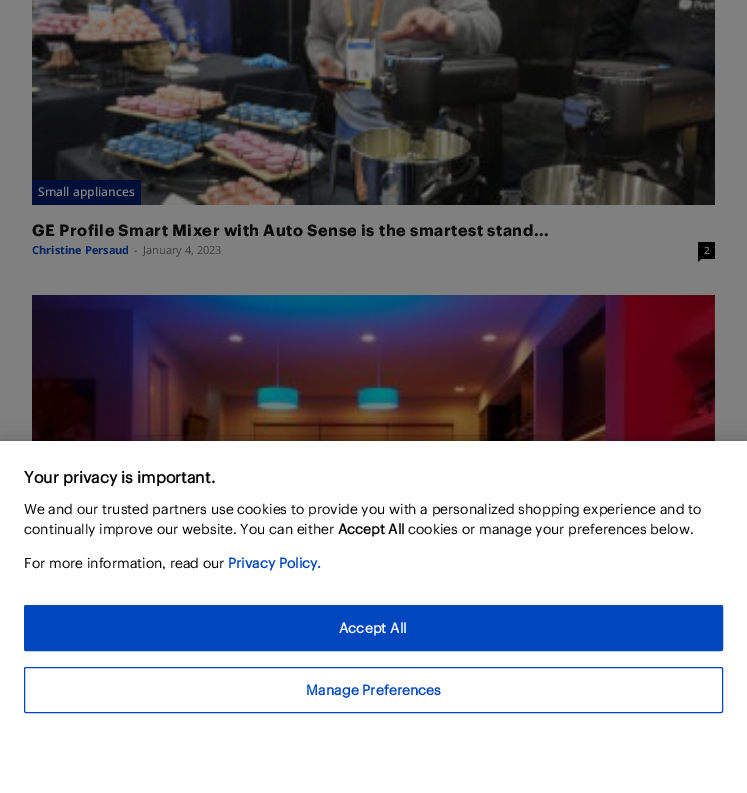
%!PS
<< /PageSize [747 793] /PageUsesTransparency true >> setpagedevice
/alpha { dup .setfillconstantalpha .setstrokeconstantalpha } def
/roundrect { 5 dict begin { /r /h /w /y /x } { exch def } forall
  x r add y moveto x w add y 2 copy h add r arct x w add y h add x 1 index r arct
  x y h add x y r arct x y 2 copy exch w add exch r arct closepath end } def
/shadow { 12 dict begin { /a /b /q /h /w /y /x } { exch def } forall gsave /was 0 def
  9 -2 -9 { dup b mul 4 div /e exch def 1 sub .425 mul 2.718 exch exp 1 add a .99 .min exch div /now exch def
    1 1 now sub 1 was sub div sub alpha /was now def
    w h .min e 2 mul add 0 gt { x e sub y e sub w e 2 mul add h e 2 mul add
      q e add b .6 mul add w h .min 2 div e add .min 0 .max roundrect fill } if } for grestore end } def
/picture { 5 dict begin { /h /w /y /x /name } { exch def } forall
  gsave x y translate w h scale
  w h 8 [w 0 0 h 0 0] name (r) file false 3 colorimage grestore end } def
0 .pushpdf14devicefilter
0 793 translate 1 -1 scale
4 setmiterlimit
0.502 setgray
0 0 747 793 rectfill
(img1.rgb) 32 0 683 205 picture
0 0.059 0.227 setrgbcolor
32 180 109 25 rectfill
/OpenSans-SemiBold [12 0 0 -12 0 0] selectfont
0.502 setgray
38 196 moveto (Small appliances) show
/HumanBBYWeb-Bold [16 0 0 -16 0 0] selectfont
0.035 setgray
32 236 moveto 0.5 0 (GE Profile Smart Mixer with Auto Sense is the smartest stand...) ashow
/OpenSans-Bold [11 0 0 -11 0 0] selectfont
0 0.137 0.373 setrgbcolor
32 254 moveto (Christine Persaud) show
/OpenSans-Regular [11 0 0 -11 0 0] selectfont
0.114 0.125 0.145 setrgbcolor
134 254 moveto (-) show
0.231 setgray
143 254 moveto (January 4, 2023) show
0 setgray
698 242 17 17 rectfill
/OpenSans-SemiBold [10 0 0 -10 0 0] selectfont
0.502 setgray
704 254 moveto (2) show
0 setgray
newpath 698 259 moveto 701 259 lineto 698 262 lineto closepath fill
(img2.rgb) 32 295 683 146 picture
0 441 747 352 0 9 0.2 shadow
1 setgray
0 441 747 352 rectfill
/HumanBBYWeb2-Bold [16 0 0 -16 0 0] selectfont
0 setgray
24 483 moveto (Your privacy is important.) show
/HumanBBYWeb-Regular [14 0 0 -14 0 0] selectfont
24 514 moveto (We and our trusted partners use cookies to provide you with a personalized shopping experience and to) show
24 534 moveto (continually improve our website. You can either) show
/HumanBBYWeb2-Bold [14 0 0 -14 0 0] selectfont
338 534 moveto (Accept All) show
/HumanBBYWeb-Regular [14 0 0 -14 0 0] selectfont
408 534 moveto (cookies or manage your preferences below.) show
24 568 moveto (For more information, read our) show
/HumanBBYWeb2-Bold [14 0 0 -14 0 0] selectfont
0 0.275 0.745 setrgbcolor
228 568 moveto (Privacy Policy.) show
24.5 605.5 698 45 1.5 roundrect gsave fill grestore
stroke
1 setgray
339 633 moveto 0.1 0 (Accept All) ashow
0 0.275 0.745 setrgbcolor
24.5 667.5 698 45 1.5 roundrect stroke
306 695 moveto 0.1 0 (Manage Preferences) ashow
.poppdf14devicefilter showpage
